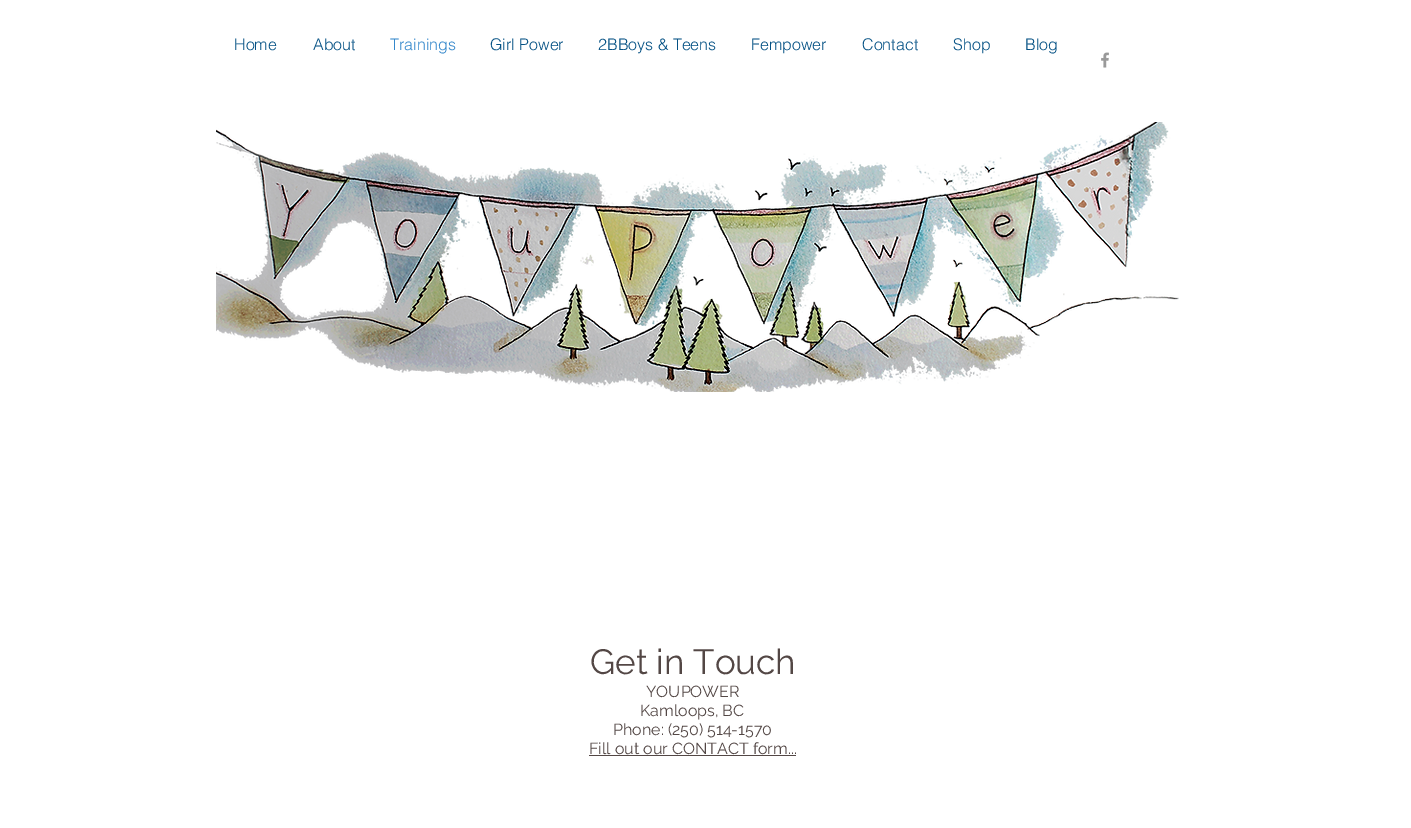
%!PS
<< /PageSize [1411 828] >> setpagedevice
/picture { 5 dict begin { /h /w /y /x /name } { exch def } forall
  gsave x y translate w h scale
  w h 8 [w 0 0 h 0 0] name (r) file false 3 colorimage grestore end } def
0 828 translate 1 -1 scale
4 setmiterlimit
1 setgray
0 0 1411 828 rectfill
/helvetica-Light [16 0 0 -16 0 0] selectfont
0.016 0.318 0.518 setrgbcolor
234 50 moveto (Home) show
313 50 moveto (About) show
0.208 0.533 0.8 setrgbcolor
390 50 moveto (Trainings) show
0.016 0.318 0.518 setrgbcolor
490 50 moveto (Girl Power) show
598 50 moveto (2BBoys & Teens) show
751 50 moveto (Fempower) show
862 50 moveto (Contact) show
953 50 moveto (Shop) show
1025 50 moveto (Blog) show
(img1.rgb) 1101 52 8 16 picture
(img2.rgb) 216 122 963 270 picture
/Raleway-Regular [35 0 0 -35 0 0] selectfont
0.325 0.278 0.271 setrgbcolor
590 674 moveto (Get in Touch) show
/Raleway-Regular [16 0 0 -16 0 0] selectfont
646 697 moveto (YOUPOWER) show
640 716 moveto (Kamloops, BC) show
613 735 moveto (Phone: \(250\) 514-1570) show
589 754 moveto (Fill out our CONTACT form...) show
589 755 207 1 rectfill
showpage
